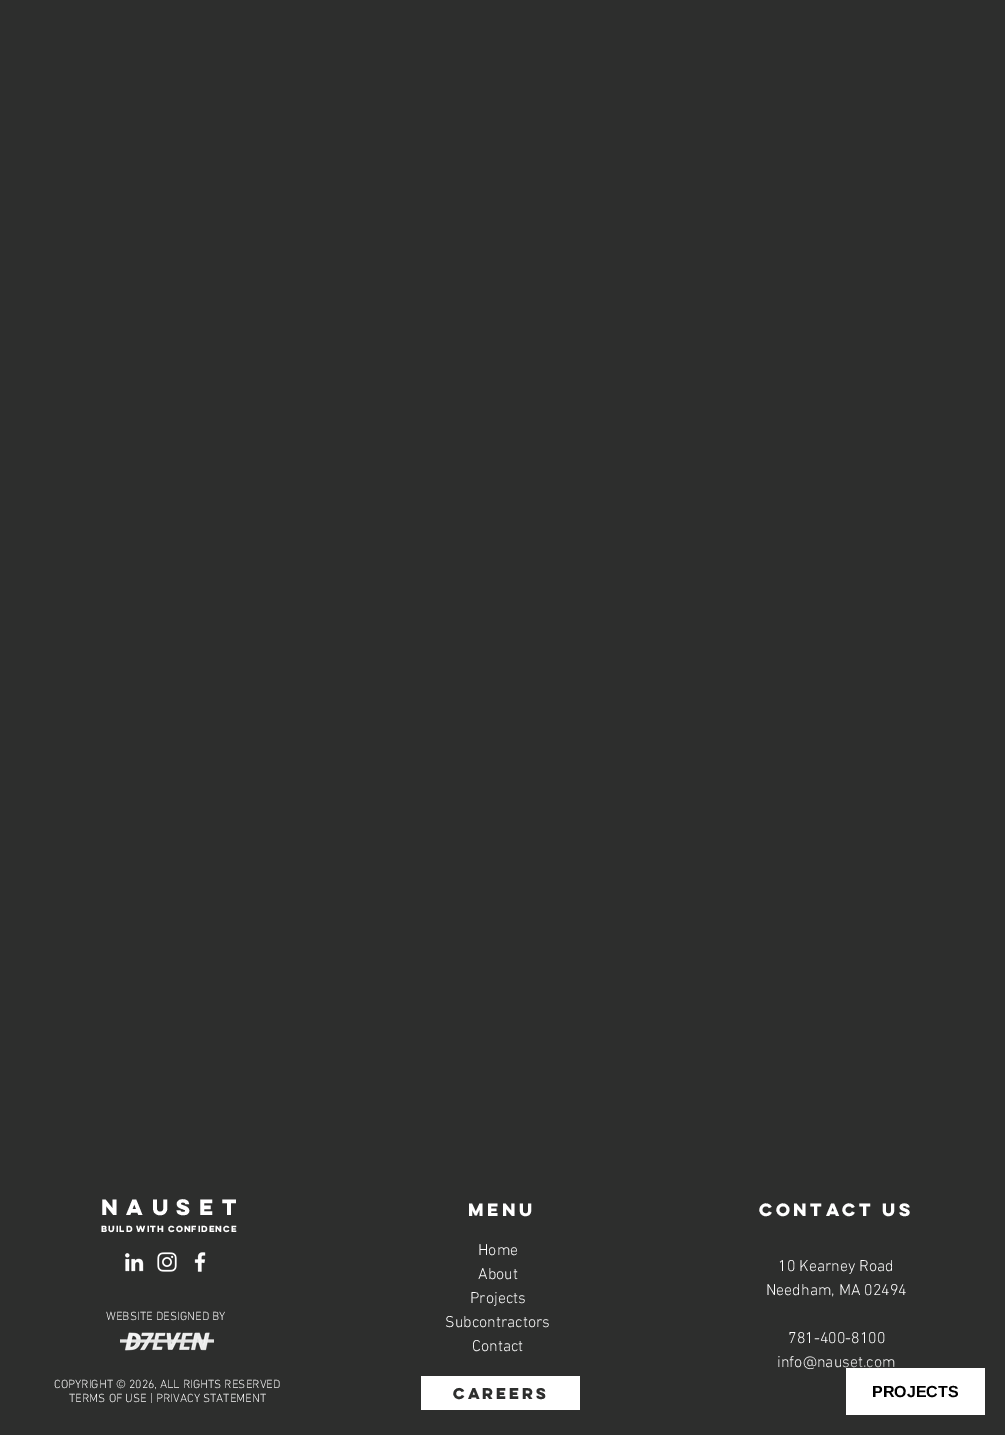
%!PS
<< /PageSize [1005 1435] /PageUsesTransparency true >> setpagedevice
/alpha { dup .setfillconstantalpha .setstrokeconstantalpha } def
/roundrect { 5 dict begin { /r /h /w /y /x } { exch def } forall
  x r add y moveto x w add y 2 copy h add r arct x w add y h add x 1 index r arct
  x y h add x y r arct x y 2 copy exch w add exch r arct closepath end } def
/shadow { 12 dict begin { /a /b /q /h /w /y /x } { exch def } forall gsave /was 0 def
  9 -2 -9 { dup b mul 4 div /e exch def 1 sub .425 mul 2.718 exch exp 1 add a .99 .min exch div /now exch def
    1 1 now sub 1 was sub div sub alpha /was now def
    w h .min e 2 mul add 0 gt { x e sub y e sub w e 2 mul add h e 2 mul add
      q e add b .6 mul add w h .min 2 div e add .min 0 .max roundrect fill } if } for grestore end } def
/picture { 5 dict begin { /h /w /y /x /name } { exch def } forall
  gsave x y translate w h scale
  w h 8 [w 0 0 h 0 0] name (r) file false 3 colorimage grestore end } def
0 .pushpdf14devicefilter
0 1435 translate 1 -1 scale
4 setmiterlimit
0.176 0.18 0.176 setrgbcolor
0 0 1005 1435 rectfill
/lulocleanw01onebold-Bold [20 0 0 -20 0 0] selectfont
1 setgray
101 1215 moveto 4 0 (Nauset) ashow
/lulocleanw01onebold-Bold [8 0 0 -8 0 0] selectfont
101 1232 moveto -0.8 0 (BUILD WITH CONFIDENCE) ashow
(img1.rgb) 125 1253 19 19 picture
(img2.rgb) 157 1252 20 20 picture
(img3.rgb) 194 1252 12 20 picture
/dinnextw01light-Light [12 0 0 -12 0 0] selectfont
106 1320 moveto (WEBSITE DESIGNED BY) show
(img4.rgb) 120 1332 94 19 picture
54 1388 moveto (COPYRIGHT © 2026, ALL RIGHTS RESERVED) show
69 1402 moveto (TERMS OF USE | PRIVACY STATEMENT) show
/lulocleanw01onebold-Bold [16 0 0 -16 0 0] selectfont
468 1216 moveto (Menu) show
/dinnextw01light-Light [16 0 0 -16 0 0] selectfont
478 1255 moveto (Home) show
478 1279 moveto (About) show
470 1303 moveto (Projects) show
445 1327 moveto (Subcontractors) show
472 1351 moveto (Contact) show
421 1376 159 34 rectfill
/lulocleanw01onebold-Bold [14 0 0 -14 0 0] selectfont
0.176 0.18 0.176 setrgbcolor
453 1399 moveto (CAREERS) show
/lulocleanw01onebold-Bold [16 0 0 -16 0 0] selectfont
1 setgray
759 1216 moveto (contact us) show
/dinnextw01light-Light [16 0 0 -16 0 0] selectfont
778 1271 moveto (10 Kearney Road) show
766 1295 moveto (Needham, MA 02494) show
788 1343 moveto (781-400-8100) show
777 1367 moveto (info@nauset.com) show
0.176 0.18 0.176 setrgbcolor
846 1369 139 47 0 3.5 1 shadow
1 setgray
846 1368 139 47 rectfill
/LiberationSans-Bold [16 0 0 -16 0 0] selectfont
0 setgray
872 1397 moveto (PROJECTS) show
.poppdf14devicefilter showpage
